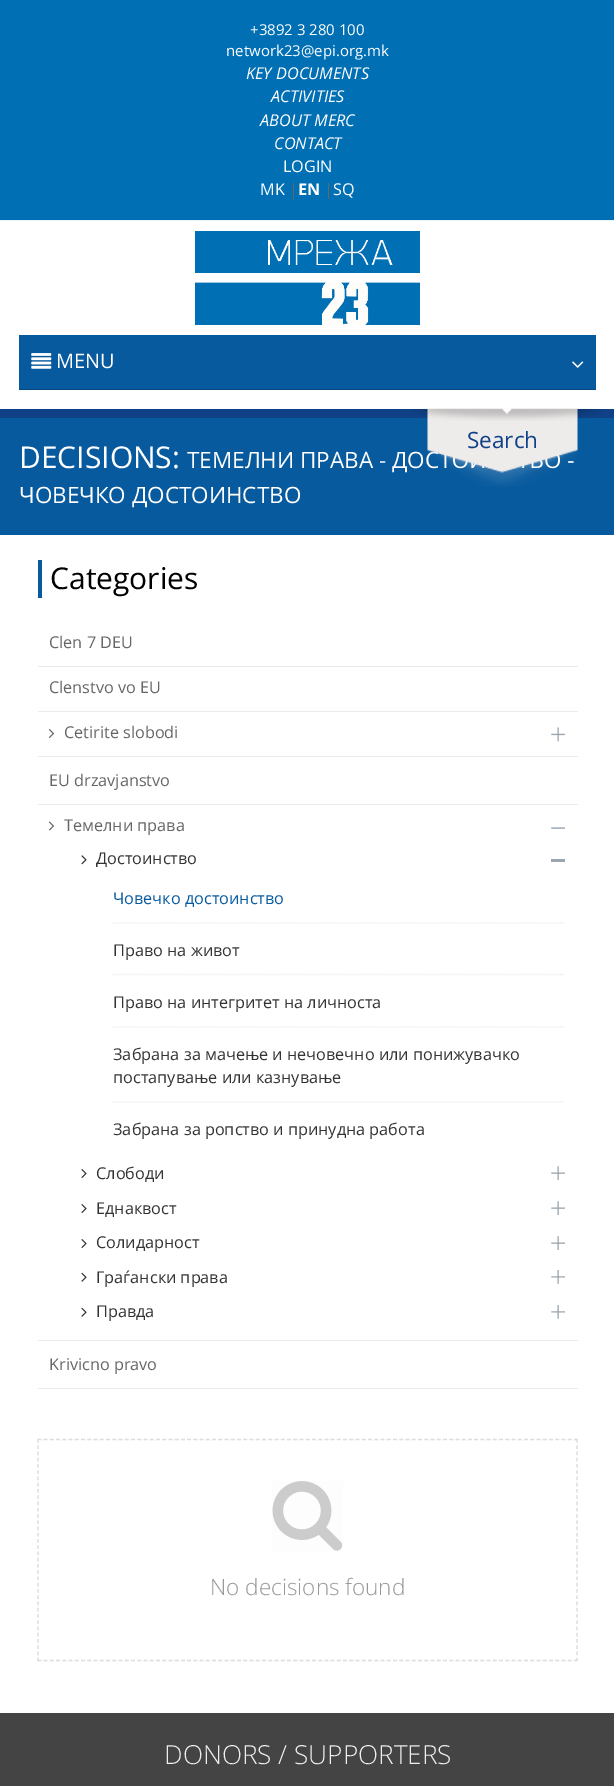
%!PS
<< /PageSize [614 1786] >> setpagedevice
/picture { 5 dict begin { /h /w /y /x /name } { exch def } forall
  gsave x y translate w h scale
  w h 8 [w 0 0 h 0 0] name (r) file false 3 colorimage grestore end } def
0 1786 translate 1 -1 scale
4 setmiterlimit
1 setgray
0 0 614 1786 rectfill
0 0.435 0.706 setrgbcolor
0 0 614 220 rectfill
0.918 0.953 0.976 setrgbcolor
0 220 614 1 rectfill
/OpenSans-Regular [15 0 0 -15 0 0] selectfont
1 setgray
250 35 moveto (+3892 3 280 100) show
226 56 moveto (network23@epi.org.mk) show
/OpenSans-Italic [16.25 0 0 -16.25 0 0] selectfont
246 79 moveto (KEY DOCUMENTS) show
271 102 moveto (ACTIVITIES) show
260 126 moveto (ABOUT MERC) show
274 149 moveto (CONTACT) show
/OpenSans-Regular [16.25 0 0 -16.25 0 0] selectfont
283 172 moveto (LOGIN) show
260 195 moveto (MK) show
0.4 setgray
289 195 moveto (|) show
/OpenSans-Bold [16.25 0 0 -16.25 0 0] selectfont
1 setgray
298 195 moveto (EN) show
/OpenSans-Regular [16.25 0 0 -16.25 0 0] selectfont
0.4 setgray
324 195 moveto (|) show
1 setgray
333 195 moveto (SQ) show
(img1.rgb) 195 231 225 94 picture
0.027 0.353 0.62 setrgbcolor
19 335 577 54 rectfill
0.024 0.282 0.494 setrgbcolor
19 389 577 1 rectfill
(img2.rgb) 31 353 21 16 picture
/OpenSans-Regular [20 0 0 -20 0 0] selectfont
1 setgray
56 368 moveto (MENU) show
(img3.rgb) 572 361 12 7 picture
0.027 0.353 0.62 setrgbcolor
0 418 614 117 rectfill
0.063 0.255 0.529 setrgbcolor
0 409 614 9 rectfill
/OpenSans-Regular [22.5 0 0 -22.5 0 0] selectfont
1 setgray
187 468 moveto (ТЕМЕЛНИ ПРАВА - ДОС) show
567 468 moveto (-) show
(img5.rgb) 427 408 151 78 picture
(img4.rgb) 411 408 192 13 picture
0.063 0.255 0.529 setrgbcolor
467 448 moveto (Search) show
/OpenSans-Regular [30 0 0 -30 0 0] selectfont
1 setgray
19 468 moveto (DECISIONS:) show
/OpenSans-Regular [22.5 0 0 -22.5 0 0] selectfont
19 503 moveto (ЧОВЕЧКО ДОСТОИНСТВО) show
0.027 0.353 0.62 setrgbcolor
38 560 4 38 rectfill
/OpenSans-Regular [30 0 0 -30 0 0] selectfont
0 setgray
50 589 moveto (Categories) show
0.925 0.922 0.922 setrgbcolor
38 666 540 1 rectfill
/OpenSans-Regular [16.25 0 0 -16.25 0 0] selectfont
0.4 setgray
49 648 moveto (Clen 7 DEU) show
0.925 0.922 0.922 setrgbcolor
38 711 540 1 rectfill
0.4 setgray
49 693 moveto (Clenstvo vo EU) show
0.925 0.922 0.922 setrgbcolor
38 756 540 1 rectfill
(img6.rgb) 48 729 7 9 picture
0.4 setgray
64 738 moveto (Cetirite slobodi) show
(img7.rgb) 551 727 14 15 picture
0.925 0.922 0.922 setrgbcolor
38 804 540 1 rectfill
0.4 setgray
49 786 moveto (EU drzavјanstvo) show
0.925 0.922 0.922 setrgbcolor
38 1340 540 1 rectfill
(img8.rgb) 48 821 7 10 picture
0.4 setgray
64 831 moveto (Темелни права) show
(img9.rgb) 551 827 14 2 picture
(img10.rgb) 81 855 6 10 picture
0.2 setgray
96 864 moveto (Достоинство) show
0.6 0.651 0.698 setrgbcolor
551 859 14 3 rectfill
0.933 setgray
1.2 setlinewidth
[1.25 1.25] 0 setdash
newpath 112.5 923 moveto 565 923 lineto stroke
0.027 0.353 0.62 setrgbcolor
113 904 moveto (Човечко достоинство) show
0.933 setgray
newpath 112.5 974.5 moveto 565 974.5 lineto stroke
0.2 setgray
113 956 moveto (Право на живот) show
0.933 setgray
newpath 112.5 1027 moveto 565 1027 lineto stroke
0.2 setgray
113 1008 moveto (Право на интегритет на личноста) show
0.933 setgray
newpath 112.5 1102 moveto 565 1102 lineto stroke
0.2 setgray
113 1060 moveto (Забрана за мачење и нечовечно или понижувачко) show
113 1083 moveto (постапување или казнување) show
113 1135 moveto (Забрана за ропство и принудна работа) show
(img11.rgb) 81 1169 6 9 picture
96 1179 moveto (Слободи) show
(img12.rgb) 551 1166 14 14 picture
(img11.rgb) 81 1204 6 9 picture
96 1214 moveto (Еднаквост) show
(img12.rgb) 551 1201 14 14 picture
(img11.rgb) 81 1239 6 9 picture
96 1248 moveto (Солидарност) show
(img12.rgb) 551 1236 14 14 picture
(img13.rgb) 81 1272 6 10 picture
96 1283 moveto (Граѓански права) show
(img14.rgb) 551 1270 14 14 picture
(img13.rgb) 81 1307 6 10 picture
96 1317 moveto (Правда) show
(img14.rgb) 551 1305 14 14 picture
0.925 0.922 0.922 setrgbcolor
38 1388 540 1 rectfill
0.4 setgray
49 1370 moveto (Krivicno pravo) show
0.867 setgray
[3.75 2.49] 0 setdash
newpath 37.5 1439.5 moveto 577.5 1439.5 lineto stroke
[3.75 2.5] 0 setdash
newpath 577 1439 moveto 577 1661 lineto stroke
[3.75 2.49] 0 setdash
newpath 37.5 1660.5 moveto 577.5 1660.5 lineto stroke
[3.75 2.5] 0 setdash
newpath 38 1439 moveto 38 1661 lineto stroke
(img15.rgb) 272 1481 71 70 picture
/OpenSans-Light [22.5 0 0 -22.5 0 0] selectfont
0.6 setgray
210 1595 moveto (No decisions found) show
0.267 setgray
0 1713 614 73 rectfill
/OpenSans-Light [26.25 0 0 -26.25 0 0] selectfont
0.933 setgray
164 1764 moveto (DONORS / SUPPORTERS) show
showpage
